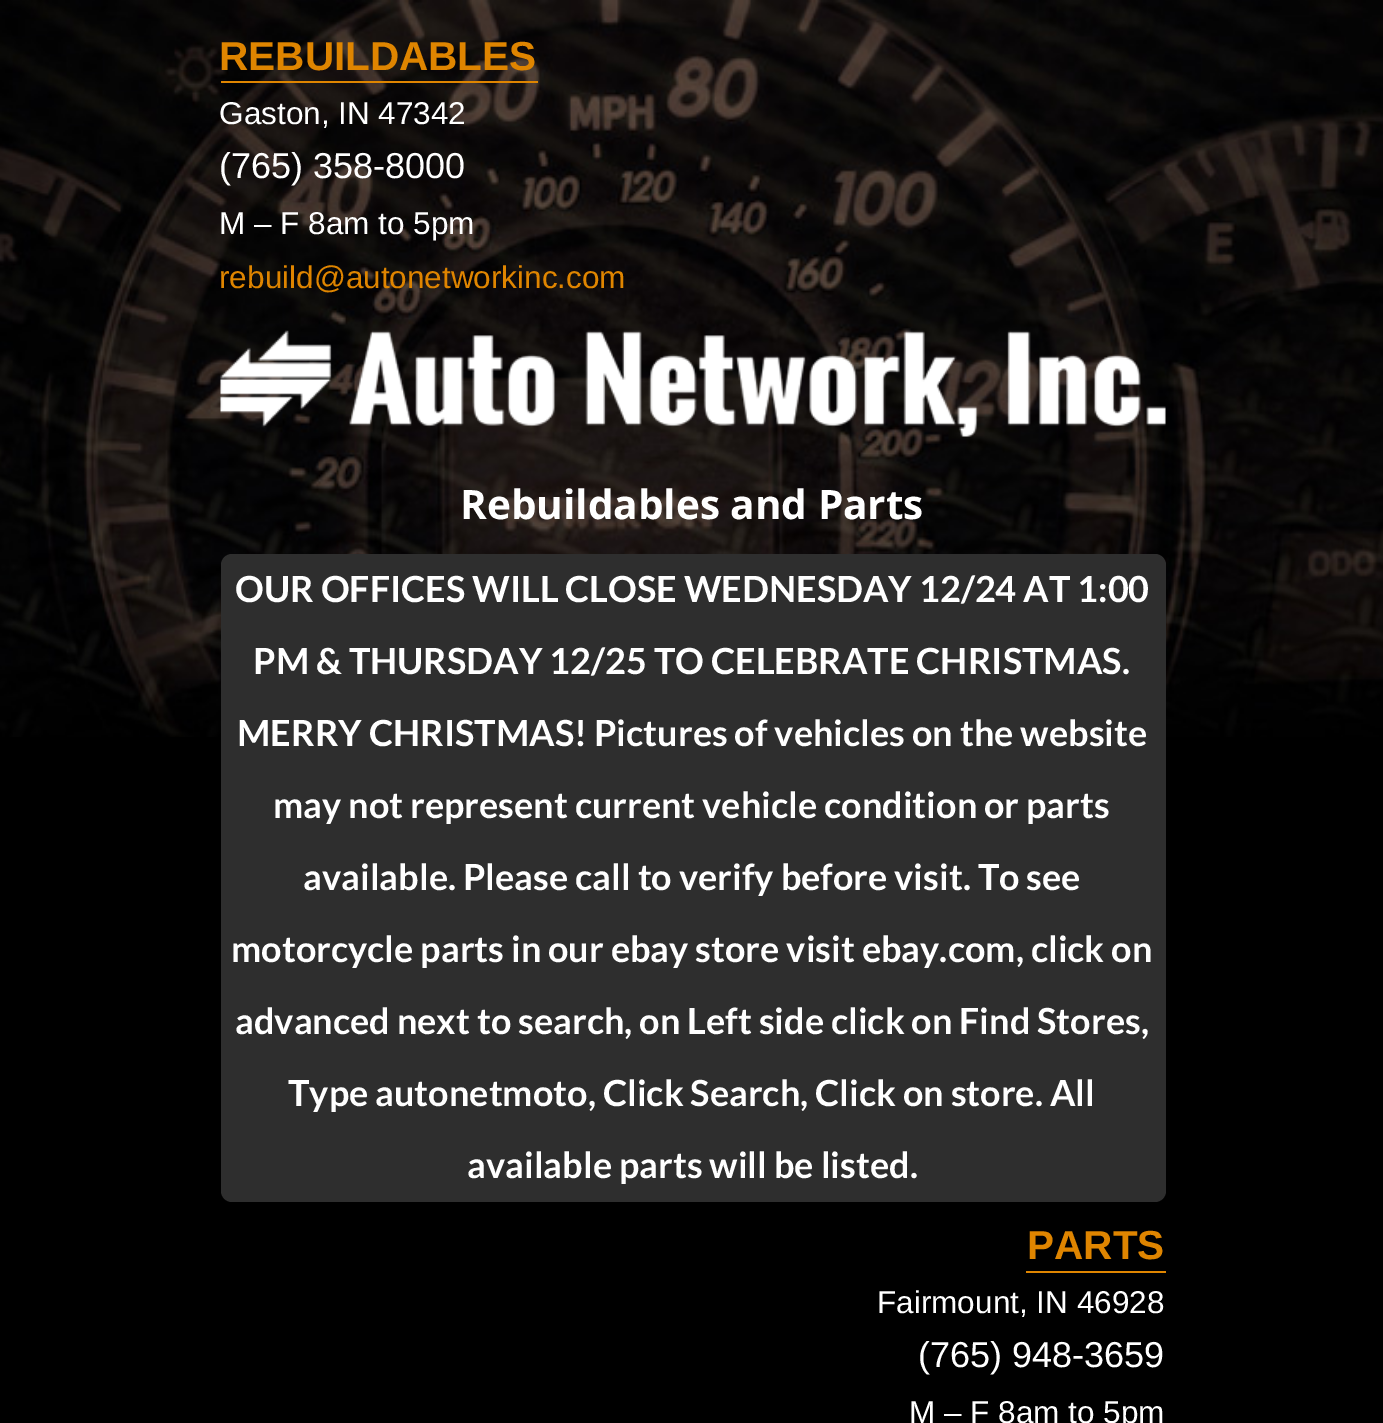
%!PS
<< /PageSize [1383 1423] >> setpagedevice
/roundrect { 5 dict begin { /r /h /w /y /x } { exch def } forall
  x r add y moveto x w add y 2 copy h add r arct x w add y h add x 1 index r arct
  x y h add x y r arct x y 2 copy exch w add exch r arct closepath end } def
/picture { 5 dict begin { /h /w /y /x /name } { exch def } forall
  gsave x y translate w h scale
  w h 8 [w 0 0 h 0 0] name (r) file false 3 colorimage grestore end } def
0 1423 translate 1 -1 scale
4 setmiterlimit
0 setgray
0 0 1383 1423 rectfill
(img1.rgb) 0 0 1383 737 picture
0.875 0.522 0 setrgbcolor
221 81 317 2 rectfill
/LiberationSans-Bold [40.5 0 0 -40.5 0 0] selectfont
219 70 moveto (REBUILDABLES) show
/LiberationSans-Regular [31.5 0 0 -31.5 0 0] selectfont
1 setgray
219 124 moveto (Gaston, IN 47342) show
/LiberationSans-Regular [36 0 0 -36 0 0] selectfont
219 178 moveto (\(765\) 358-8000) show
/LiberationSans-Regular [31.5 0 0 -31.5 0 0] selectfont
219 234 moveto (M – F 8am to 5pm) show
0.875 0.522 0 setrgbcolor
219 288 moveto (rebuild@autonetworkinc.com) show
(img2.rgb) 220 330 946 107 picture
/OpenSans-Bold [40.5 0 0 -40.5 0 0] selectfont
1 setgray
460 519 moveto (Rebuildables and Parts) show
0.18 setgray
221 554 945 648 11 roundrect fill
/Lato-Bold [36 0 0 -36 0 0] selectfont
1 setgray
235 602 moveto (OUR OFFICES WILL CLOSE WEDNESDAY 12/24 AT 1:00) show
253 674 moveto (PM & THURSDAY 12/25 TO CELEBRATE CHRISTMAS.) show
237 746 moveto (MERRY CHRISTMAS! Pictures of vehicles on the website) show
273 818 moveto (may not represent current vehicle condition or parts) show
303 890 moveto (available. Please call to verify before visit. To see) show
231 962 moveto (motorcycle parts in our ebay store visit ebay.com, click on) show
235 1034 moveto (advanced next to search, on Left side click on Find Stores,) show
288 1106 moveto (Type autonetmoto, Click Search, Click on store. All) show
467 1178 moveto (available parts will be listed.) show
0.875 0.522 0 setrgbcolor
1026 1271 140 2 rectfill
/LiberationSans-Bold [40.5 0 0 -40.5 0 0] selectfont
1027 1259 moveto (PARTS) show
/LiberationSans-Regular [31.5 0 0 -31.5 0 0] selectfont
1 setgray
877 1313 moveto (Fairmount, IN 46928) show
/LiberationSans-Regular [36 0 0 -36 0 0] selectfont
918 1367 moveto (\(765\) 948-3659) show
/LiberationSans-Regular [31.5 0 0 -31.5 0 0] selectfont
909 1423 moveto (M – F 8am to 5pm) show
showpage
